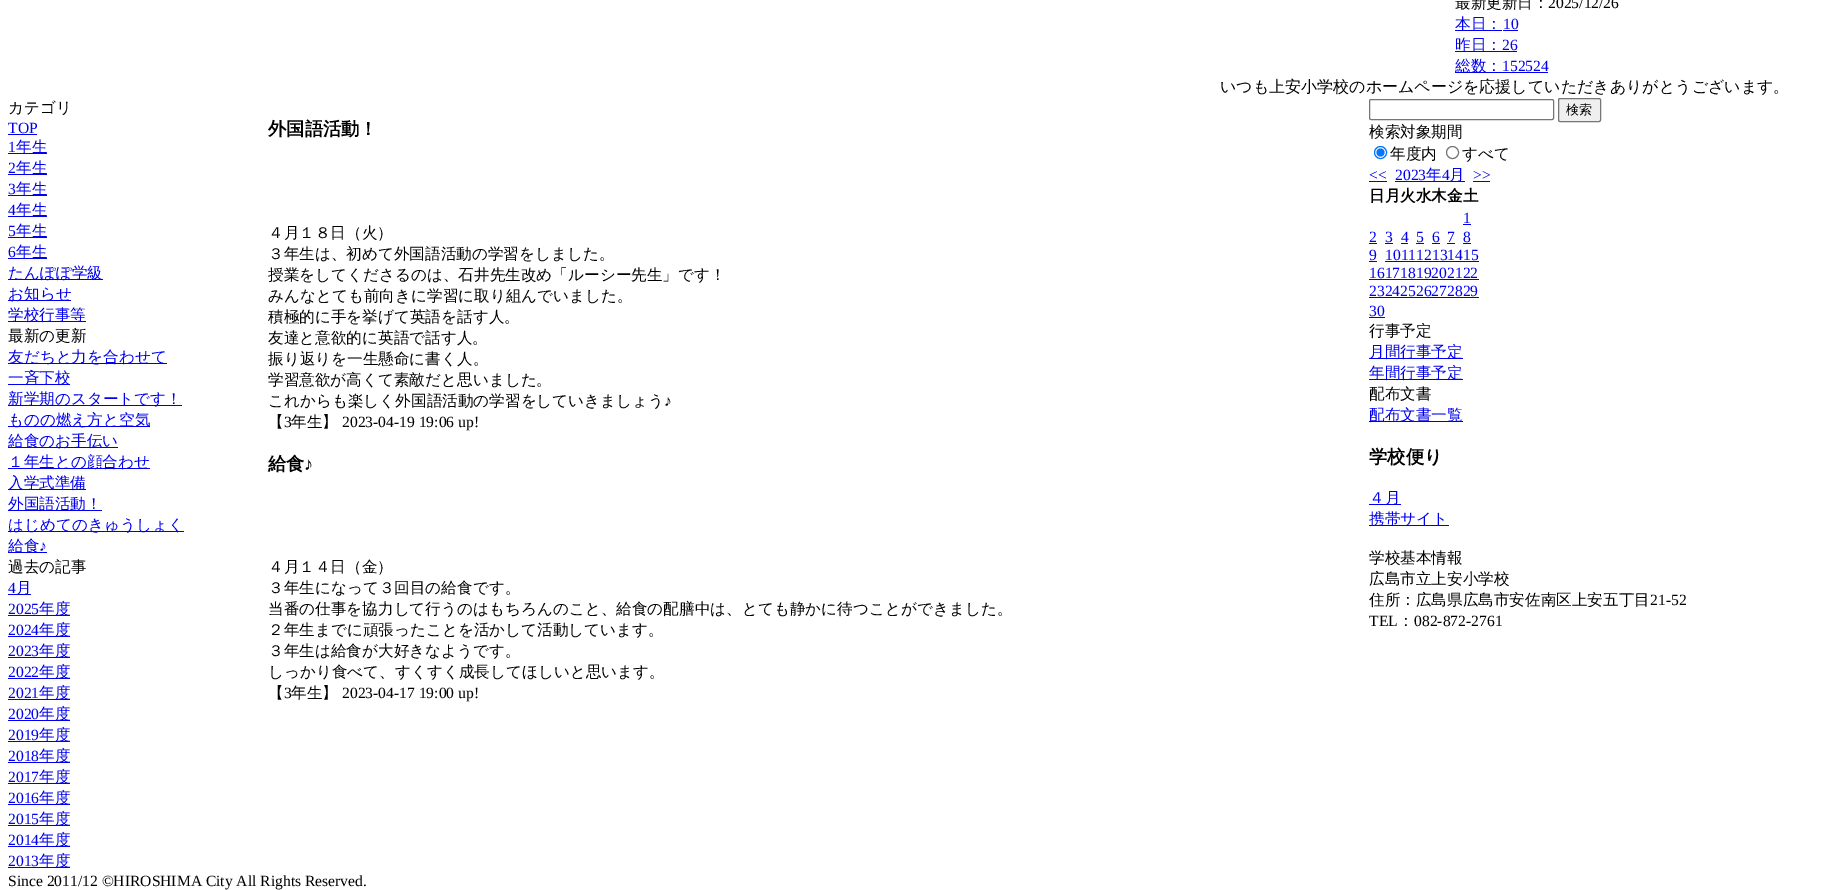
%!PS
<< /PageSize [1847 890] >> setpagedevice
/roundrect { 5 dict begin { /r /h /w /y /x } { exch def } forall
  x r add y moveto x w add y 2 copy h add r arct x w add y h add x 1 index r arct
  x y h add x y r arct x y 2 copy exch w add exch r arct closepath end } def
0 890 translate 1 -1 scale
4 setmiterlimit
1 setgray
0 0 1847 890 rectfill
/WenQuanYiZenHei-Medium [15.6 0 0 -15.6 0 0] selectfont
0 setgray
1455 8 moveto (最新更新日：) show
/LiberationSerif-Regular [15.6 0 0 -15.6 0 0] selectfont
1548 8 moveto (2025/12/26) show
0 0 0.933 setrgbcolor
1455 30 47 1 rectfill
/WenQuanYiZenHei-Medium [15.6 0 0 -15.6 0 0] selectfont
1455 29 moveto (本日：) show
/LiberationSerif-Regular [15.6 0 0 -15.6 0 0] selectfont
1503 29 moveto (10) show
1503 30 15 1 rectfill
1455 51 62 1 rectfill
/WenQuanYiZenHei-Medium [15.6 0 0 -15.6 0 0] selectfont
1455 50 moveto (昨日：) show
/LiberationSerif-Regular [15.6 0 0 -15.6 0 0] selectfont
1502 50 moveto (26) show
1455 72 93 1 rectfill
/WenQuanYiZenHei-Medium [15.6 0 0 -15.6 0 0] selectfont
1455 71 moveto (総数：) show
/LiberationSerif-Regular [15.6 0 0 -15.6 0 0] selectfont
1502 71 moveto (152524) show
/WenQuanYiZenHei-Medium [16 0 0 -16 0 0] selectfont
0 setgray
1220 92 moveto (いつも上安小学校のホームページを応援していただきありがとうございます。) show
/WenQuanYiZenHei-Medium [15.6 0 0 -15.6 0 0] selectfont
8 113 moveto (カテゴリ) show
/LiberationSerif-Regular [15.6 0 0 -15.6 0 0] selectfont
0 0 0.933 setrgbcolor
8 133 moveto (TOP) show
8 134 29 1 rectfill
8 152 moveto (1) show
8 153 39 1 rectfill
/WenQuanYiZenHei-Medium [15.6 0 0 -15.6 0 0] selectfont
16 152 moveto (年生) show
/LiberationSerif-Regular [15.6 0 0 -15.6 0 0] selectfont
8 173 moveto (2) show
8 174 39 1 rectfill
/WenQuanYiZenHei-Medium [15.6 0 0 -15.6 0 0] selectfont
16 173 moveto (年生) show
/LiberationSerif-Regular [15.6 0 0 -15.6 0 0] selectfont
8 194 moveto (3) show
8 195 39 1 rectfill
/WenQuanYiZenHei-Medium [15.6 0 0 -15.6 0 0] selectfont
16 194 moveto (年生) show
/LiberationSerif-Regular [15.6 0 0 -15.6 0 0] selectfont
8 215 moveto (4) show
8 216 39 1 rectfill
/WenQuanYiZenHei-Medium [15.6 0 0 -15.6 0 0] selectfont
16 215 moveto (年生) show
/LiberationSerif-Regular [15.6 0 0 -15.6 0 0] selectfont
8 236 moveto (5) show
8 237 39 1 rectfill
/WenQuanYiZenHei-Medium [15.6 0 0 -15.6 0 0] selectfont
16 236 moveto (年生) show
/LiberationSerif-Regular [15.6 0 0 -15.6 0 0] selectfont
8 257 moveto (6) show
8 258 39 1 rectfill
/WenQuanYiZenHei-Medium [15.6 0 0 -15.6 0 0] selectfont
16 257 moveto (年生) show
8 279 95 1 rectfill
8 278 moveto (たんぽぽ学級) show
8 300 63 1 rectfill
8 299 moveto (お知らせ) show
8 321 78 1 rectfill
8 320 moveto (学校行事等) show
0 setgray
8 341 moveto (最新の更新) show
0 0 0.933 setrgbcolor
8 363 159 1 rectfill
8 362 moveto (友だちと力を合わせて) show
8 384 62 1 rectfill
8 383 moveto (一斉下校) show
8 405 174 1 rectfill
8 404 moveto (新学期のスタートです！) show
8 426 142 1 rectfill
8 425 moveto (ものの燃え方と空気) show
8 447 110 1 rectfill
8 446 moveto (給食のお手伝い) show
8 468 142 1 rectfill
8 467 moveto (１年生との顔合わせ) show
8 489 78 1 rectfill
8 488 moveto (入学式準備) show
8 510 94 1 rectfill
8 509 moveto (外国語活動！) show
8 531 176 1 rectfill
8 530 moveto (はじめてのきゅうしょく) show
8 552 39 1 rectfill
8 551 moveto (給食) show
/LiberationSerif-Regular [15.6 0 0 -15.6 0 0] selectfont
39 551 moveto (♪) show
/WenQuanYiZenHei-Medium [15.6 0 0 -15.6 0 0] selectfont
0 setgray
8 572 moveto (過去の記事) show
/LiberationSerif-Regular [15.6 0 0 -15.6 0 0] selectfont
0 0 0.933 setrgbcolor
8 593 moveto (4) show
8 594 23 1 rectfill
/WenQuanYiZenHei-Medium [15.6 0 0 -15.6 0 0] selectfont
16 593 moveto (月) show
/LiberationSerif-Regular [15.6 0 0 -15.6 0 0] selectfont
8 614 moveto (2025) show
8 615 62 1 rectfill
/WenQuanYiZenHei-Medium [15.6 0 0 -15.6 0 0] selectfont
39 614 moveto (年度) show
/LiberationSerif-Regular [15.6 0 0 -15.6 0 0] selectfont
8 635 moveto (2024) show
8 636 62 1 rectfill
/WenQuanYiZenHei-Medium [15.6 0 0 -15.6 0 0] selectfont
39 635 moveto (年度) show
/LiberationSerif-Regular [15.6 0 0 -15.6 0 0] selectfont
8 656 moveto (2023) show
8 657 62 1 rectfill
/WenQuanYiZenHei-Medium [15.6 0 0 -15.6 0 0] selectfont
39 656 moveto (年度) show
/LiberationSerif-Regular [15.6 0 0 -15.6 0 0] selectfont
8 677 moveto (2022) show
8 678 62 1 rectfill
/WenQuanYiZenHei-Medium [15.6 0 0 -15.6 0 0] selectfont
39 677 moveto (年度) show
/LiberationSerif-Regular [15.6 0 0 -15.6 0 0] selectfont
8 698 moveto (2021) show
8 699 62 1 rectfill
/WenQuanYiZenHei-Medium [15.6 0 0 -15.6 0 0] selectfont
39 698 moveto (年度) show
/LiberationSerif-Regular [15.6 0 0 -15.6 0 0] selectfont
8 719 moveto (2020) show
8 720 62 1 rectfill
/WenQuanYiZenHei-Medium [15.6 0 0 -15.6 0 0] selectfont
39 719 moveto (年度) show
/LiberationSerif-Regular [15.6 0 0 -15.6 0 0] selectfont
8 740 moveto (2019) show
8 741 62 1 rectfill
/WenQuanYiZenHei-Medium [15.6 0 0 -15.6 0 0] selectfont
39 740 moveto (年度) show
/LiberationSerif-Regular [15.6 0 0 -15.6 0 0] selectfont
8 761 moveto (2018) show
8 762 62 1 rectfill
/WenQuanYiZenHei-Medium [15.6 0 0 -15.6 0 0] selectfont
39 761 moveto (年度) show
/LiberationSerif-Regular [15.6 0 0 -15.6 0 0] selectfont
8 782 moveto (2017) show
8 783 62 1 rectfill
/WenQuanYiZenHei-Medium [15.6 0 0 -15.6 0 0] selectfont
39 782 moveto (年度) show
/LiberationSerif-Regular [15.6 0 0 -15.6 0 0] selectfont
8 803 moveto (2016) show
8 804 62 1 rectfill
/WenQuanYiZenHei-Medium [15.6 0 0 -15.6 0 0] selectfont
39 803 moveto (年度) show
/LiberationSerif-Regular [15.6 0 0 -15.6 0 0] selectfont
8 824 moveto (2015) show
8 825 62 1 rectfill
/WenQuanYiZenHei-Medium [15.6 0 0 -15.6 0 0] selectfont
39 824 moveto (年度) show
/LiberationSerif-Regular [15.6 0 0 -15.6 0 0] selectfont
8 845 moveto (2014) show
8 846 62 1 rectfill
/WenQuanYiZenHei-Medium [15.6 0 0 -15.6 0 0] selectfont
39 845 moveto (年度) show
/LiberationSerif-Regular [15.6 0 0 -15.6 0 0] selectfont
8 866 moveto (2013) show
8 867 62 1 rectfill
/WenQuanYiZenHei-Medium [15.6 0 0 -15.6 0 0] selectfont
39 866 moveto (年度) show
/WenQuanYiZenHei-Bold [18.25 0 0 -18.25 0 0] selectfont
0 setgray
268 135 moveto (外国語活動！) show
/WenQuanYiZenHei-Medium [15.6 0 0 -15.6 0 0] selectfont
268 238 moveto (４月１８日（火）) show
268 259 moveto (３年生は、初めて外国語活動の学習をしました。) show
268 280 moveto (授業をしてくださるのは、石井先生改め「ルーシー先生」です！) show
268 301 moveto (みんなとても前向きに学習に取り組んでいました。) show
268 322 moveto (積極的に手を挙げて英語を話す人。) show
268 343 moveto (友達と意欲的に英語で話す人。) show
268 364 moveto (振り返りを一生懸命に書く人。) show
268 385 moveto (学習意欲が高くて素敵だと思いました。) show
268 406 moveto (これからも楽しく外国語活動の学習をしていきましょう) show
/LiberationSerif-Regular [15.6 0 0 -15.6 0 0] selectfont
664 406 moveto (♪) show
/WenQuanYiZenHei-Medium [15.6 0 0 -15.6 0 0] selectfont
268 427 moveto (【) show
/LiberationSerif-Regular [15.6 0 0 -15.6 0 0] selectfont
284 427 moveto (3) show
/WenQuanYiZenHei-Medium [15.6 0 0 -15.6 0 0] selectfont
291 427 moveto (年生】) show
/LiberationSerif-Regular [15.6 0 0 -15.6 0 0] selectfont
342 427 moveto (2023-04-19 19:06 up!) show
/WenQuanYiZenHei-Bold [18.25 0 0 -18.25 0 0] selectfont
268 470 moveto (給食) show
/LiberationSerif-Bold [18.25 0 0 -18.25 0 0] selectfont
304 470 moveto (♪) show
/WenQuanYiZenHei-Medium [15.6 0 0 -15.6 0 0] selectfont
268 572 moveto (４月１４日（金）) show
268 593 moveto (３年生になって３回目の給食です。) show
268 614 moveto (当番の仕事を協力して行うのはもちろんのこと、給食の配膳中は、とても静かに待つことができました。) show
268 635 moveto (２年生までに頑張ったことを活かして活動しています。) show
268 656 moveto (３年生は給食が大好きなようです。) show
268 677 moveto (しっかり食べて、すくすく成長してほしいと思います。) show
268 698 moveto (【) show
/LiberationSerif-Regular [15.6 0 0 -15.6 0 0] selectfont
284 698 moveto (3) show
/WenQuanYiZenHei-Medium [15.6 0 0 -15.6 0 0] selectfont
291 698 moveto (年生】) show
/LiberationSerif-Regular [15.6 0 0 -15.6 0 0] selectfont
342 698 moveto (2023-04-17 19:00 up!) show
0.463 setgray
1369.5 99.5 184 20 1.5 roundrect stroke
0.937 setgray
1558.5 98.5 42 23 1.5 roundrect gsave fill grestore
0.463 setgray
stroke
/WenQuanYiZenHei-Medium [13 0 0 -13 0 0] selectfont
0 setgray
1566 114 moveto (検索) show
/WenQuanYiZenHei-Medium [15.6 0 0 -15.6 0 0] selectfont
1369 137 moveto (検索対象期間) show
0 0.459 1 setrgbcolor
newpath 1380.5 152.5 6 0 360 arc closepath stroke
newpath 1380.5 152.5 4 0 360 arc closepath fill
0 setgray
1390 159 moveto (年度内) show
0.463 setgray
newpath 1452.5 152.5 6 0 360 arc closepath stroke
0 setgray
1462 159 moveto (すべて) show
/LiberationSerif-Regular [15.6 0 0 -15.6 0 0] selectfont
0 0 0.933 setrgbcolor
1369 180 moveto (<<) show
1369 181 18 1 rectfill
1395 180 moveto (2023) show
1395 181 70 1 rectfill
/WenQuanYiZenHei-Medium [15.6 0 0 -15.6 0 0] selectfont
1426 180 moveto (年) show
/LiberationSerif-Regular [15.6 0 0 -15.6 0 0] selectfont
1442 180 moveto (4) show
/WenQuanYiZenHei-Medium [15.6 0 0 -15.6 0 0] selectfont
1449 180 moveto (月) show
/LiberationSerif-Regular [15.6 0 0 -15.6 0 0] selectfont
1473 180 moveto (>>) show
1473 181 17 1 rectfill
/WenQuanYiZenHei-Bold [15.6 0 0 -15.6 0 0] selectfont
0 setgray
1369 201 moveto (日月火水木金土) show
/LiberationSerif-Regular [15.6 0 0 -15.6 0 0] selectfont
0 0 0.933 setrgbcolor
1463 223 moveto (1) show
1463 224 8 1 rectfill
1369 242 moveto (2) show
1369 243 8 1 rectfill
1385 242 moveto (3) show
1385 243 8 1 rectfill
1401 242 moveto (4) show
1401 243 7 1 rectfill
1416 242 moveto (5) show
1416 243 8 1 rectfill
1432 242 moveto (6) show
1432 243 8 1 rectfill
1447 242 moveto (7) show
1447 243 8 1 rectfill
1463 242 moveto (8) show
1463 243 8 1 rectfill
1369 260 moveto (9) show
1369 261 8 1 rectfill
1385 260 moveto (101112131415) show
1385 261 94 1 rectfill
1369 278 moveto (16171819202122) show
1369 279 110 1 rectfill
1369 296 moveto (23242526272829) show
1369 297 110 1 rectfill
1369 316 moveto (30) show
1369 317 16 1 rectfill
/WenQuanYiZenHei-Medium [15.6 0 0 -15.6 0 0] selectfont
0 setgray
1369 336 moveto (行事予定) show
0 0 0.933 setrgbcolor
1369 358 94 1 rectfill
1369 357 moveto (月間行事予定) show
1369 379 94 1 rectfill
1369 378 moveto (年間行事予定) show
0 setgray
1369 399 moveto (配布文書) show
0 0 0.933 setrgbcolor
1369 421 94 1 rectfill
1369 420 moveto (配布文書一覧) show
/WenQuanYiZenHei-Bold [18.25 0 0 -18.25 0 0] selectfont
0 setgray
1369 463 moveto (学校便り) show
0 0 0.933 setrgbcolor
1369 504 32 1 rectfill
/WenQuanYiZenHei-Medium [15.6 0 0 -15.6 0 0] selectfont
1369 503 moveto (４月) show
1369 525 80 1 rectfill
1369 524 moveto (携帯サイト) show
0 setgray
1369 563 moveto (学校基本情報) show
1369 584 moveto (広島市立上安小学校) show
1369 605 moveto (住所：広島県広島市安佐南区上安五丁目) show
/LiberationSerif-Regular [15.6 0 0 -15.6 0 0] selectfont
1650 605 moveto (21-52) show
1369 626 moveto (TEL) show
/WenQuanYiZenHei-Medium [15.6 0 0 -15.6 0 0] selectfont
1398 626 moveto (：) show
/LiberationSerif-Regular [15.6 0 0 -15.6 0 0] selectfont
1414 626 moveto (082-872-2761) show
8 886 moveto (Since 2011/12 ©HIROSHIMA City All Rights Reserved.) show
showpage
